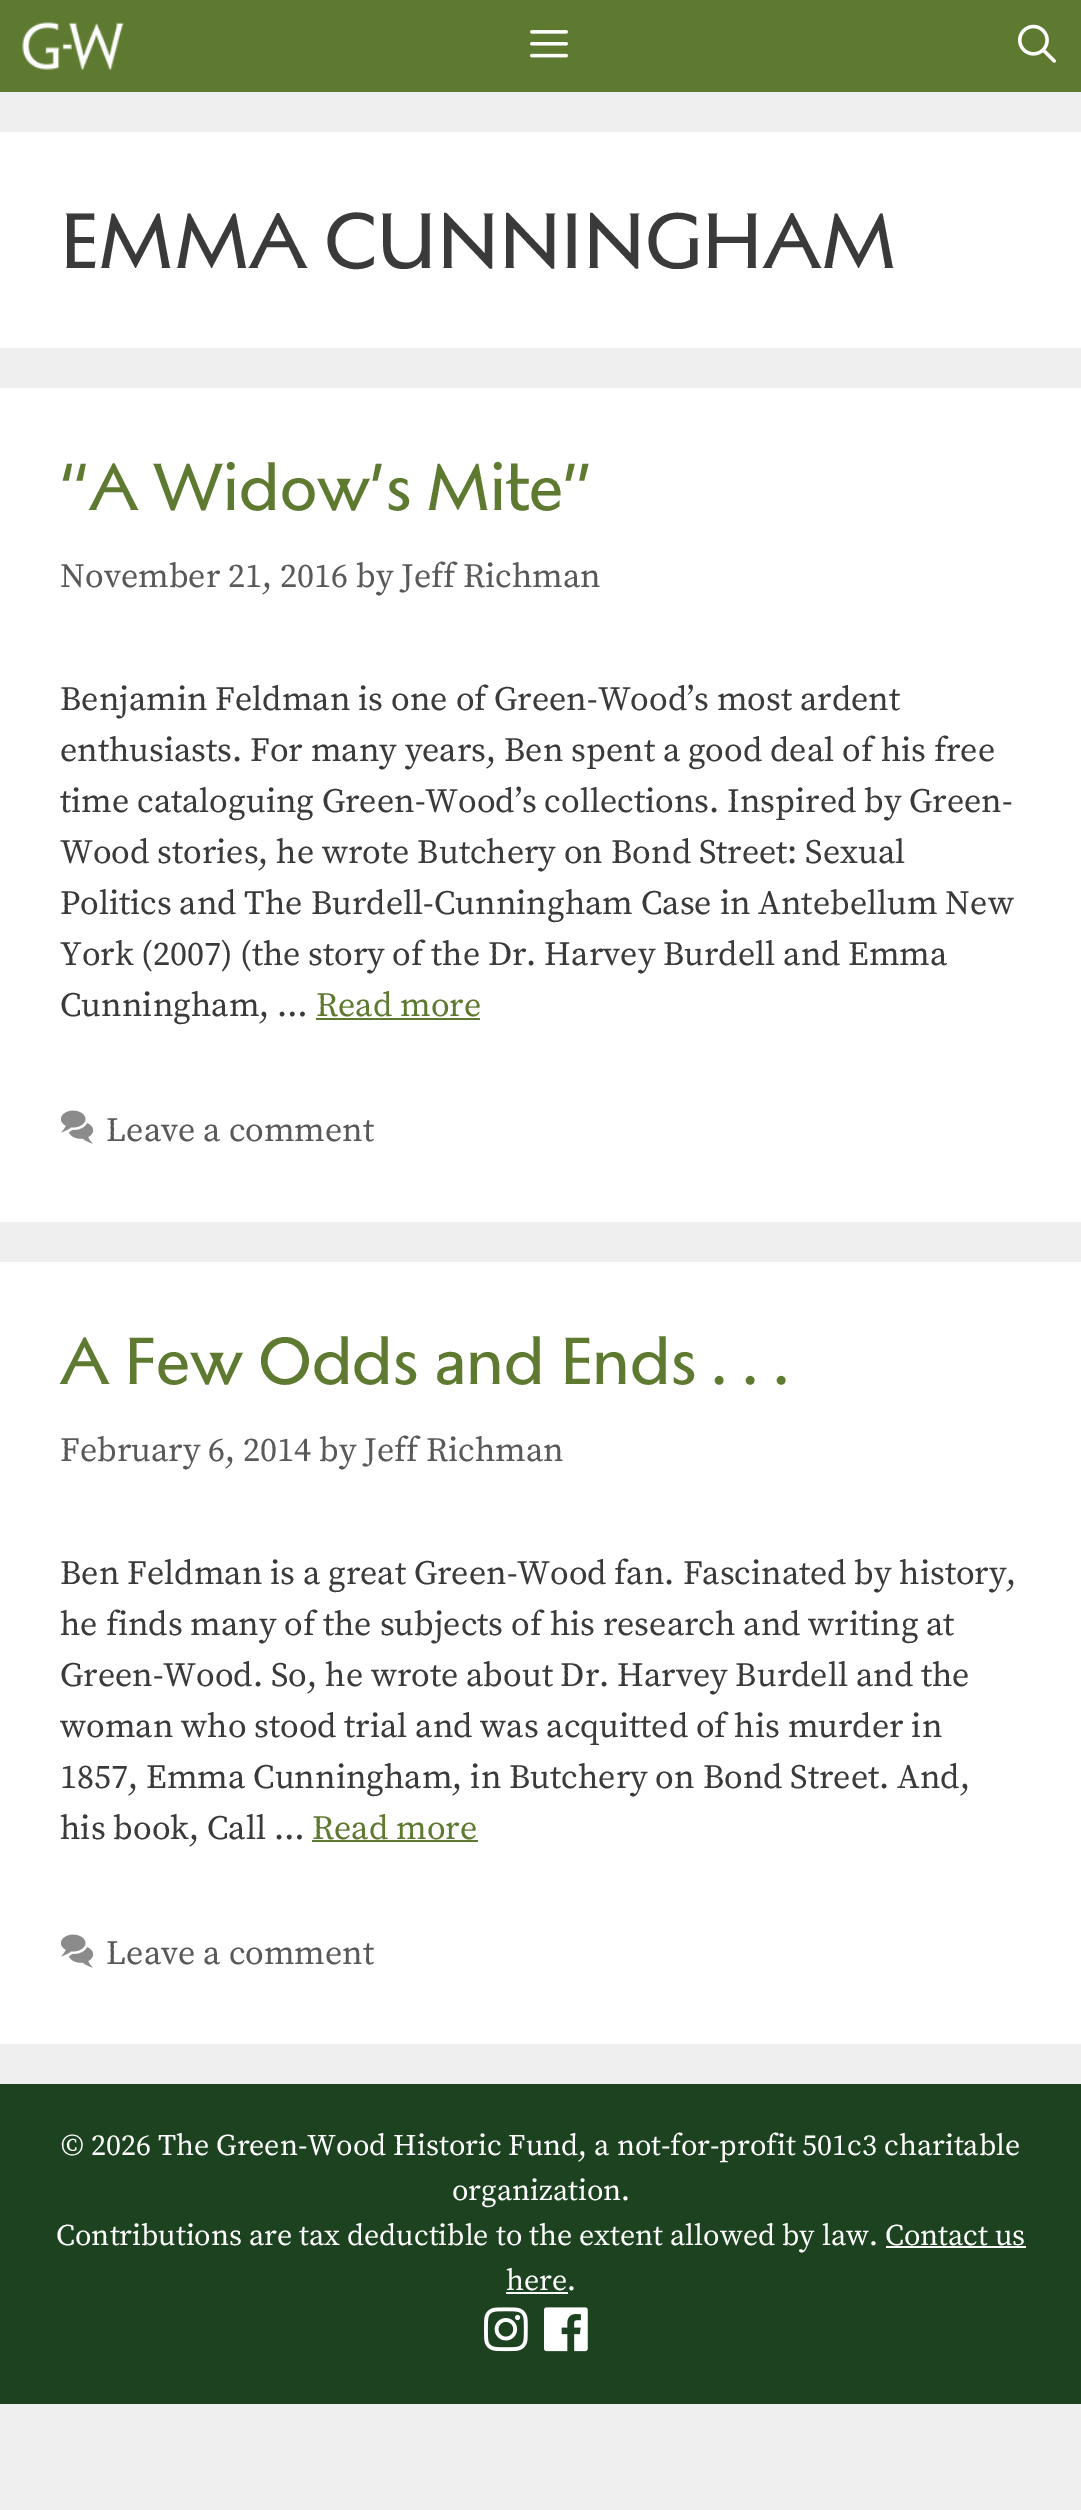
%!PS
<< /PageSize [1081 2510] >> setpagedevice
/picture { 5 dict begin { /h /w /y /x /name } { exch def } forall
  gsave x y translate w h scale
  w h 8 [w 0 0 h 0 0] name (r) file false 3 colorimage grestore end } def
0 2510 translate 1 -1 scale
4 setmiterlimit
0.937 setgray
0 0 1081 2510 rectfill
0.369 0.475 0.188 setrgbcolor
0 0 1081 92 rectfill
(img1.rgb) 22 22 102 48 picture
(img2.rgb) 530 30 38 28 picture
(img3.rgb) 1018 24 38 39 picture
1 setgray
0 132 1081 216 rectfill
/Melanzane-Regular [80 0 0 -80 0 0] selectfont
0.227 setgray
60 268 moveto (EMMA CUNNINGHAM) show
1 setgray
0 388 1081 834 rectfill
/Melanzane-Regular [68 0 0 -68 0 0] selectfont
0.369 0.475 0.188 setrgbcolor
60 510 moveto (“A Widow’s Mite”) show
/SourceSerifPro-Regular [34 0 0 -34 0 0] selectfont
0.349 setgray
60 587 moveto (November 21, 2016 by Jeff Richman) show
0.227 setgray
60 710 moveto (Benjamin Feldman is one of Green-Wood’s most ardent) show
60 761 moveto (enthusiasts. For many years, Ben spent a good deal of his free) show
60 812 moveto (time cataloguing Green-Wood’s collections. Inspired by Green-) show
60 863 moveto (Wood stories, he wrote Butchery on Bond Street: Sexual) show
60 914 moveto (Politics and The Burdell-Cunningham Case in Antebellum New) show
60 965 moveto (York \(2007\) \(the story of the Dr. Harvey Burdell and Emma) show
60 1016 moveto (Cunningham, …) show
0.369 0.475 0.188 setrgbcolor
316 1016 moveto (Read more) show
316 1018 164 2 rectfill
(img4.rgb) 60 1110 34 34 picture
0.349 setgray
106 1141 moveto (Leave a comment) show
1 setgray
0 1262 1081 782 rectfill
/Melanzane-Regular [68 0 0 -68 0 0] selectfont
0.369 0.475 0.188 setrgbcolor
60 1384 moveto (A Few Odds and Ends . . .) show
/SourceSerifPro-Regular [34 0 0 -34 0 0] selectfont
0.349 setgray
60 1461 moveto (February 6, 2014 by Jeff Richman) show
0.227 setgray
60 1584 moveto (Ben Feldman is a great Green-Wood fan. Fascinated by history,) show
60 1635 moveto (he finds many of the subjects of his research and writing at) show
60 1686 moveto (Green-Wood. So, he wrote about Dr. Harvey Burdell and the) show
60 1737 moveto (woman who stood trial and was acquitted of his murder in) show
60 1788 moveto (1857, Emma Cunningham, in Butchery on Bond Street. And,) show
60 1839 moveto (his book, Call …) show
0.369 0.475 0.188 setrgbcolor
312 1839 moveto (Read more) show
312 1840 166 2 rectfill
(img4.rgb) 60 1934 34 34 picture
0.349 setgray
106 1964 moveto (Leave a comment) show
0.11 0.259 0.125 setrgbcolor
0 2084 1081 320 rectfill
/SourceSerifPro-Regular [30 0 0 -30 0 0] selectfont
1 setgray
61 2155 moveto (© 2026 The Green-Wood Historic Fund, a not-for-profit 501c3 charitable) show
452 2200 moveto (organization.) show
56 2245 moveto (Contributions are tax deductible to the extent allowed by law. Contact us) show
506 2290 moveto (here.) show
886 2246 140 2 rectfill
506 2292 62 2 rectfill
(img5.rgb) 484 2307 44 45 picture
(img6.rgb) 544 2307 44 45 picture
showpage
